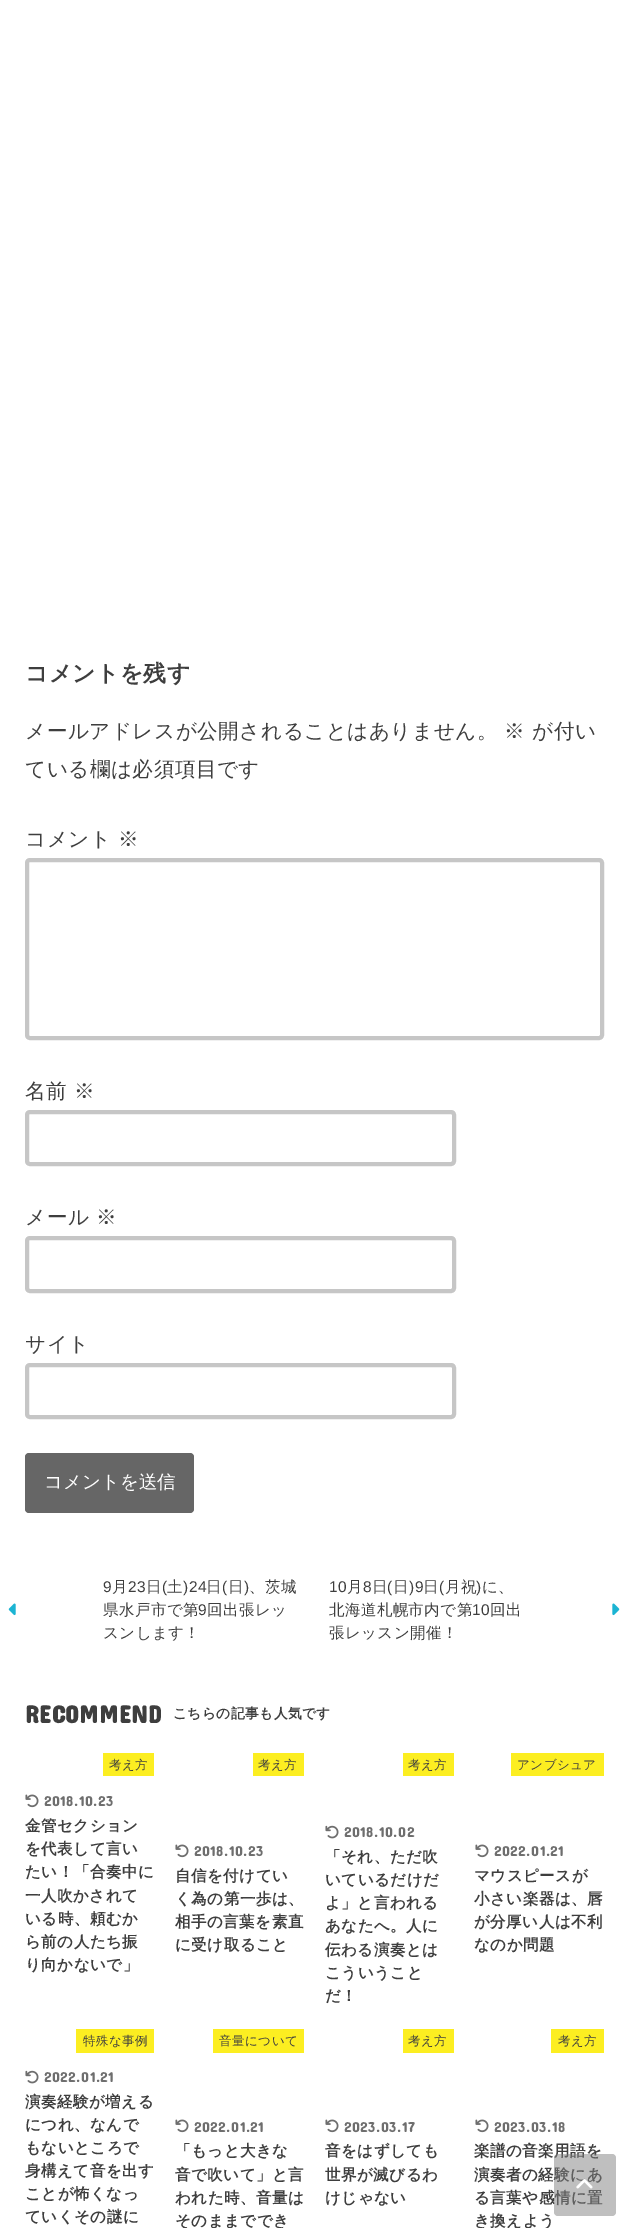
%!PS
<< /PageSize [628 2228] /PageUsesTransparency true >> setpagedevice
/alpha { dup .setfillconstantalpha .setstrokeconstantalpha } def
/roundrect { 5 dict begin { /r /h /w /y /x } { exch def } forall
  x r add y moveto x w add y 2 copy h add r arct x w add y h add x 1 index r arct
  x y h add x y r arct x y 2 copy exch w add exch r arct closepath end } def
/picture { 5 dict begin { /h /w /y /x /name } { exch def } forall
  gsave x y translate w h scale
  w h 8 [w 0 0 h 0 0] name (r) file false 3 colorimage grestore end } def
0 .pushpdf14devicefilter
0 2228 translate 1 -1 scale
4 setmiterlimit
1 setgray
0 0 628 2228 rectfill
/WenQuanYiZenHei-Bold [22.75 0 0 -22.75 0 0] selectfont
0.243 setgray
25 681 moveto 0.4 0 (コメントを残す) ashow
/WenQuanYiZenHei-Medium [20.6 0 0 -20.6 0 0] selectfont
25 738 moveto 0.5 0 (メールアドレスが公開されることはありません。) ashow
504 738 moveto 0.5 0 (※) ashow
532 738 moveto 0.5 0 (が付い) ashow
25 776 moveto 0.5 0 (ている欄は必須項目です) ashow
25 846 moveto 0.5 0 (コメント) ashow
118 846 moveto 0.5 0 (※) ashow
0.776 setgray
4 setlinewidth
27 860 575 178 3 roundrect stroke
0.243 setgray
25 1098 moveto 0.5 0 (名前) ashow
74 1098 moveto 0.5 0 (※) ashow
0.776 setgray
27 1112 427 52 3 roundrect stroke
0.243 setgray
25 1224 moveto 0.5 0 (メール) ashow
96 1224 moveto 0.5 0 (※) ashow
0.776 setgray
27 1238 427 53 3 roundrect stroke
0.243 setgray
25 1351 moveto 0.5 0 (サイト) ashow
0.776 setgray
27 1365 427 52 3 roundrect stroke
0.4 setgray
25 1453 169 60 4 roundrect fill
/WenQuanYiZenHei-Medium [18.5 0 0 -18.5 0 0] selectfont
1 setgray
44 1488 moveto (コメントを送信) show
(img1.rgb) 8 1603 8 13 picture
/LiberationSans-Regular [15.5 0 0 -15.5 0 0] selectfont
0.243 setgray
103 1592 moveto 0.4 0 (9) ashow
/WenQuanYiZenHei-Medium [15.5 0 0 -15.5 0 0] selectfont
112 1592 moveto 0.4 0 (月) ashow
/LiberationSans-Regular [15.5 0 0 -15.5 0 0] selectfont
128 1592 moveto 0.4 0 (23) ashow
/WenQuanYiZenHei-Medium [15.5 0 0 -15.5 0 0] selectfont
146 1592 moveto 0.4 0 (日) ashow
/LiberationSans-Regular [15.5 0 0 -15.5 0 0] selectfont
162 1592 moveto 0.4 0 (\() ashow
/WenQuanYiZenHei-Medium [15.5 0 0 -15.5 0 0] selectfont
167 1592 moveto 0.4 0 (土) ashow
/LiberationSans-Regular [15.5 0 0 -15.5 0 0] selectfont
183 1592 moveto 0.4 0 (\)24) ashow
/WenQuanYiZenHei-Medium [15.5 0 0 -15.5 0 0] selectfont
206 1592 moveto 0.4 0 (日) ashow
/LiberationSans-Regular [15.5 0 0 -15.5 0 0] selectfont
222 1592 moveto 0.4 0 (\() ashow
/WenQuanYiZenHei-Medium [15.5 0 0 -15.5 0 0] selectfont
228 1592 moveto 0.4 0 (日) ashow
/LiberationSans-Regular [15.5 0 0 -15.5 0 0] selectfont
244 1592 moveto 0.4 0 (\)) ashow
/WenQuanYiZenHei-Medium [15.5 0 0 -15.5 0 0] selectfont
249 1592 moveto 0.4 0 (、茨城) ashow
103 1615 moveto 0.4 0 (県水戸市で第) ashow
/LiberationSans-Regular [15.5 0 0 -15.5 0 0] selectfont
198 1615 moveto 0.4 0 (9) ashow
/WenQuanYiZenHei-Medium [15.5 0 0 -15.5 0 0] selectfont
207 1615 moveto 0.4 0 (回出張レッ) ashow
103 1638 moveto 0.4 0 (スンします！) ashow
/LiberationSans-Regular [15.5 0 0 -15.5 0 0] selectfont
329 1592 moveto 0.4 0 (10) ashow
/WenQuanYiZenHei-Medium [15.5 0 0 -15.5 0 0] selectfont
347 1592 moveto 0.4 0 (月) ashow
/LiberationSans-Regular [15.5 0 0 -15.5 0 0] selectfont
363 1592 moveto 0.4 0 (8) ashow
/WenQuanYiZenHei-Medium [15.5 0 0 -15.5 0 0] selectfont
372 1592 moveto 0.4 0 (日) ashow
/LiberationSans-Regular [15.5 0 0 -15.5 0 0] selectfont
387 1592 moveto 0.4 0 (\() ashow
/WenQuanYiZenHei-Medium [15.5 0 0 -15.5 0 0] selectfont
393 1592 moveto 0.4 0 (日) ashow
/LiberationSans-Regular [15.5 0 0 -15.5 0 0] selectfont
409 1592 moveto 0.4 0 (\)9) ashow
/WenQuanYiZenHei-Medium [15.5 0 0 -15.5 0 0] selectfont
423 1592 moveto 0.4 0 (日) ashow
/LiberationSans-Regular [15.5 0 0 -15.5 0 0] selectfont
439 1592 moveto 0.4 0 (\() ashow
/WenQuanYiZenHei-Medium [15.5 0 0 -15.5 0 0] selectfont
445 1592 moveto 0.4 0 (月祝) ashow
/LiberationSans-Regular [15.5 0 0 -15.5 0 0] selectfont
476 1592 moveto 0.4 0 (\)) ashow
/WenQuanYiZenHei-Medium [15.5 0 0 -15.5 0 0] selectfont
482 1592 moveto 0.4 0 (に、) ashow
329 1615 moveto 0.4 0 (北海道札幌市内で第) ashow
/LiberationSans-Regular [15.5 0 0 -15.5 0 0] selectfont
472 1615 moveto 0.4 0 (10) ashow
/WenQuanYiZenHei-Medium [15.5 0 0 -15.5 0 0] selectfont
490 1615 moveto 0.4 0 (回出) ashow
329 1638 moveto 0.4 0 (張レッスン開催！) ashow
(img2.rgb) 612 1603 8 13 picture
/ConcertOne-Bold [24.75 0 0 -24.75 0 0] selectfont
25 1723 moveto 0.4 0 (RECOMMEND) ashow
/WenQuanYiZenHei-Bold [13.75 0 0 -13.75 0 0] selectfont
173 1718 moveto 0.4 0 (こちらの記事も人気です) ashow
0.988 0.933 0.129 setrgbcolor
103 1753 51 23 rectfill
/WenQuanYiZenHei-Medium [12.5 0 0 -12.5 0 0] selectfont
0.243 setgray
109 1769 moveto 0.5 0 (考え方) ashow
(img3.rgb) 25 1794 14 14 picture
/ConcertOne-Regular [14.5 0 0 -14.5 0 0] selectfont
0.431 setgray
44 1806 moveto 0.5 0 (2018.10.23) ashow
/WenQuanYiZenHei-Bold [15.5 0 0 -15.5 0 0] selectfont
0.243 setgray
25 1831 moveto 0.5 0 (金管セクション) ashow
25 1854 moveto 0.5 0 (を代表して言い) ashow
25 1877 moveto 0.5 0 (たい！「合奏中に) ashow
25 1901 moveto 0.5 0 (一人吹かされて) ashow
25 1924 moveto 0.5 0 (いる時、頼むか) ashow
25 1947 moveto 0.5 0 (ら前の人たち振) ashow
25 1970 moveto 0.5 0 (り向かないで」) ashow
0.988 0.933 0.129 setrgbcolor
253 1753 51 23 rectfill
/WenQuanYiZenHei-Medium [12.5 0 0 -12.5 0 0] selectfont
0.243 setgray
258 1769 moveto 0.5 0 (考え方) ashow
(img3.rgb) 175 1844 14 14 picture
/ConcertOne-Regular [14.5 0 0 -14.5 0 0] selectfont
0.431 setgray
194 1856 moveto 0.5 0 (2018.10.23) ashow
/WenQuanYiZenHei-Bold [15.5 0 0 -15.5 0 0] selectfont
0.243 setgray
175 1881 moveto 0.5 0 (自信を付けてい) ashow
175 1904 moveto 0.5 0 (く為の第一歩は、) ashow
175 1927 moveto 0.5 0 (相手の言葉を素直) ashow
175 1950 moveto 0.5 0 (に受け取ること) ashow
0.988 0.933 0.129 setrgbcolor
403 1753 51 23 rectfill
/WenQuanYiZenHei-Medium [12.5 0 0 -12.5 0 0] selectfont
0.243 setgray
408 1769 moveto 0.5 0 (考え方) ashow
(img4.rgb) 325 1825 14 14 picture
/ConcertOne-Regular [14.5 0 0 -14.5 0 0] selectfont
0.431 setgray
344 1837 moveto 0.5 0 (2018.10.02) ashow
/WenQuanYiZenHei-Bold [15.5 0 0 -15.5 0 0] selectfont
0.243 setgray
325 1862 moveto 0.5 0 (「それ、ただ吹) ashow
325 1885 moveto 0.5 0 (いているだけだ) ashow
325 1908 moveto 0.5 0 (よ」と言われる) ashow
325 1931 moveto 0.5 0 (あなたへ。人に) ashow
325 1955 moveto 0.5 0 (伝わる演奏とは) ashow
325 1978 moveto 0.5 0 (こういうこと) ashow
325 2001 moveto 0.5 0 (だ！) ashow
0.988 0.933 0.129 setrgbcolor
511 1753 93 23 rectfill
/WenQuanYiZenHei-Medium [12.5 0 0 -12.5 0 0] selectfont
0.243 setgray
517 1769 moveto 0.5 0 (アンブシュア) ashow
(img3.rgb) 475 1844 14 14 picture
/ConcertOne-Regular [14.5 0 0 -14.5 0 0] selectfont
0.431 setgray
494 1856 moveto 0.5 0 (2022.01.21) ashow
/WenQuanYiZenHei-Bold [15.5 0 0 -15.5 0 0] selectfont
0.243 setgray
474 1881 moveto 0.5 0 (マウスピースが) ashow
474 1904 moveto 0.5 0 (小さい楽器は、唇) ashow
474 1927 moveto 0.5 0 (が分厚い人は不利) ashow
474 1950 moveto 0.5 0 (なのか問題) ashow
0.988 0.933 0.129 setrgbcolor
76 2029 78 24 rectfill
/WenQuanYiZenHei-Medium [12.5 0 0 -12.5 0 0] selectfont
0.243 setgray
83 2045 moveto 0.5 0 (特殊な事例) ashow
(img4.rgb) 25 2070 14 14 picture
/ConcertOne-Regular [14.5 0 0 -14.5 0 0] selectfont
0.431 setgray
44 2082 moveto 0.5 0 (2022.01.21) ashow
/WenQuanYiZenHei-Bold [15.5 0 0 -15.5 0 0] selectfont
0.243 setgray
25 2107 moveto 0.5 0 (演奏経験が増える) ashow
25 2130 moveto 0.5 0 (につれ、なんで) ashow
25 2153 moveto 0.5 0 (もないところで) ashow
25 2176 moveto 0.5 0 (身構えて音を出す) ashow
25 2199 moveto 0.5 0 (ことが怖くなっ) ashow
25 2222 moveto 0.5 0 (ていくその謎に) ashow
0.988 0.933 0.129 setrgbcolor
213 2029 91 24 rectfill
/WenQuanYiZenHei-Medium [12.5 0 0 -12.5 0 0] selectfont
0.243 setgray
219 2045 moveto 0.5 0 (音量について) ashow
(img3.rgb) 175 2119 14 14 picture
/ConcertOne-Regular [14.5 0 0 -14.5 0 0] selectfont
0.431 setgray
194 2132 moveto 0.5 0 (2022.01.21) ashow
/WenQuanYiZenHei-Bold [15.5 0 0 -15.5 0 0] selectfont
0.243 setgray
175 2156 moveto 0.5 0 (「もっと大きな) ashow
175 2180 moveto 0.5 0 (音で吹いて」と言) ashow
175 2203 moveto 0.5 0 (われた時、音量は) ashow
175 2226 moveto 0.5 0 (そのままででき) ashow
0.988 0.933 0.129 setrgbcolor
403 2029 51 24 rectfill
/WenQuanYiZenHei-Medium [12.5 0 0 -12.5 0 0] selectfont
0.243 setgray
408 2045 moveto 0.5 0 (考え方) ashow
(img3.rgb) 325 2119 14 14 picture
/ConcertOne-Regular [14.5 0 0 -14.5 0 0] selectfont
0.431 setgray
344 2132 moveto 0.5 0 (2023.03.17) ashow
/WenQuanYiZenHei-Bold [15.5 0 0 -15.5 0 0] selectfont
0.243 setgray
325 2156 moveto 0.5 0 (音をはずしても) ashow
325 2180 moveto 0.5 0 (世界が滅びるわ) ashow
325 2203 moveto 0.5 0 (けじゃない) ashow
0.988 0.933 0.129 setrgbcolor
551 2029 53 24 rectfill
/WenQuanYiZenHei-Medium [12.5 0 0 -12.5 0 0] selectfont
0.243 setgray
558 2045 moveto 0.5 0 (考え方) ashow
(img3.rgb) 475 2119 14 14 picture
/ConcertOne-Regular [14.5 0 0 -14.5 0 0] selectfont
0.431 setgray
494 2132 moveto 0.5 0 (2023.03.18) ashow
/WenQuanYiZenHei-Bold [15.5 0 0 -15.5 0 0] selectfont
0.243 setgray
474 2156 moveto 0.5 0 (楽譜の音楽用語を) ashow
474 2180 moveto 0.5 0 (演奏者の経験にあ) ashow
474 2203 moveto 0.5 0 (る言葉や感情に置) ashow
474 2226 moveto 0.5 0 (き換えよう) ashow
0.5 alpha
0.502 setgray
554 2154 62 62 4 roundrect fill
1 alpha
(img5.rgb) 576 2179 17 10 picture
.poppdf14devicefilter showpage
